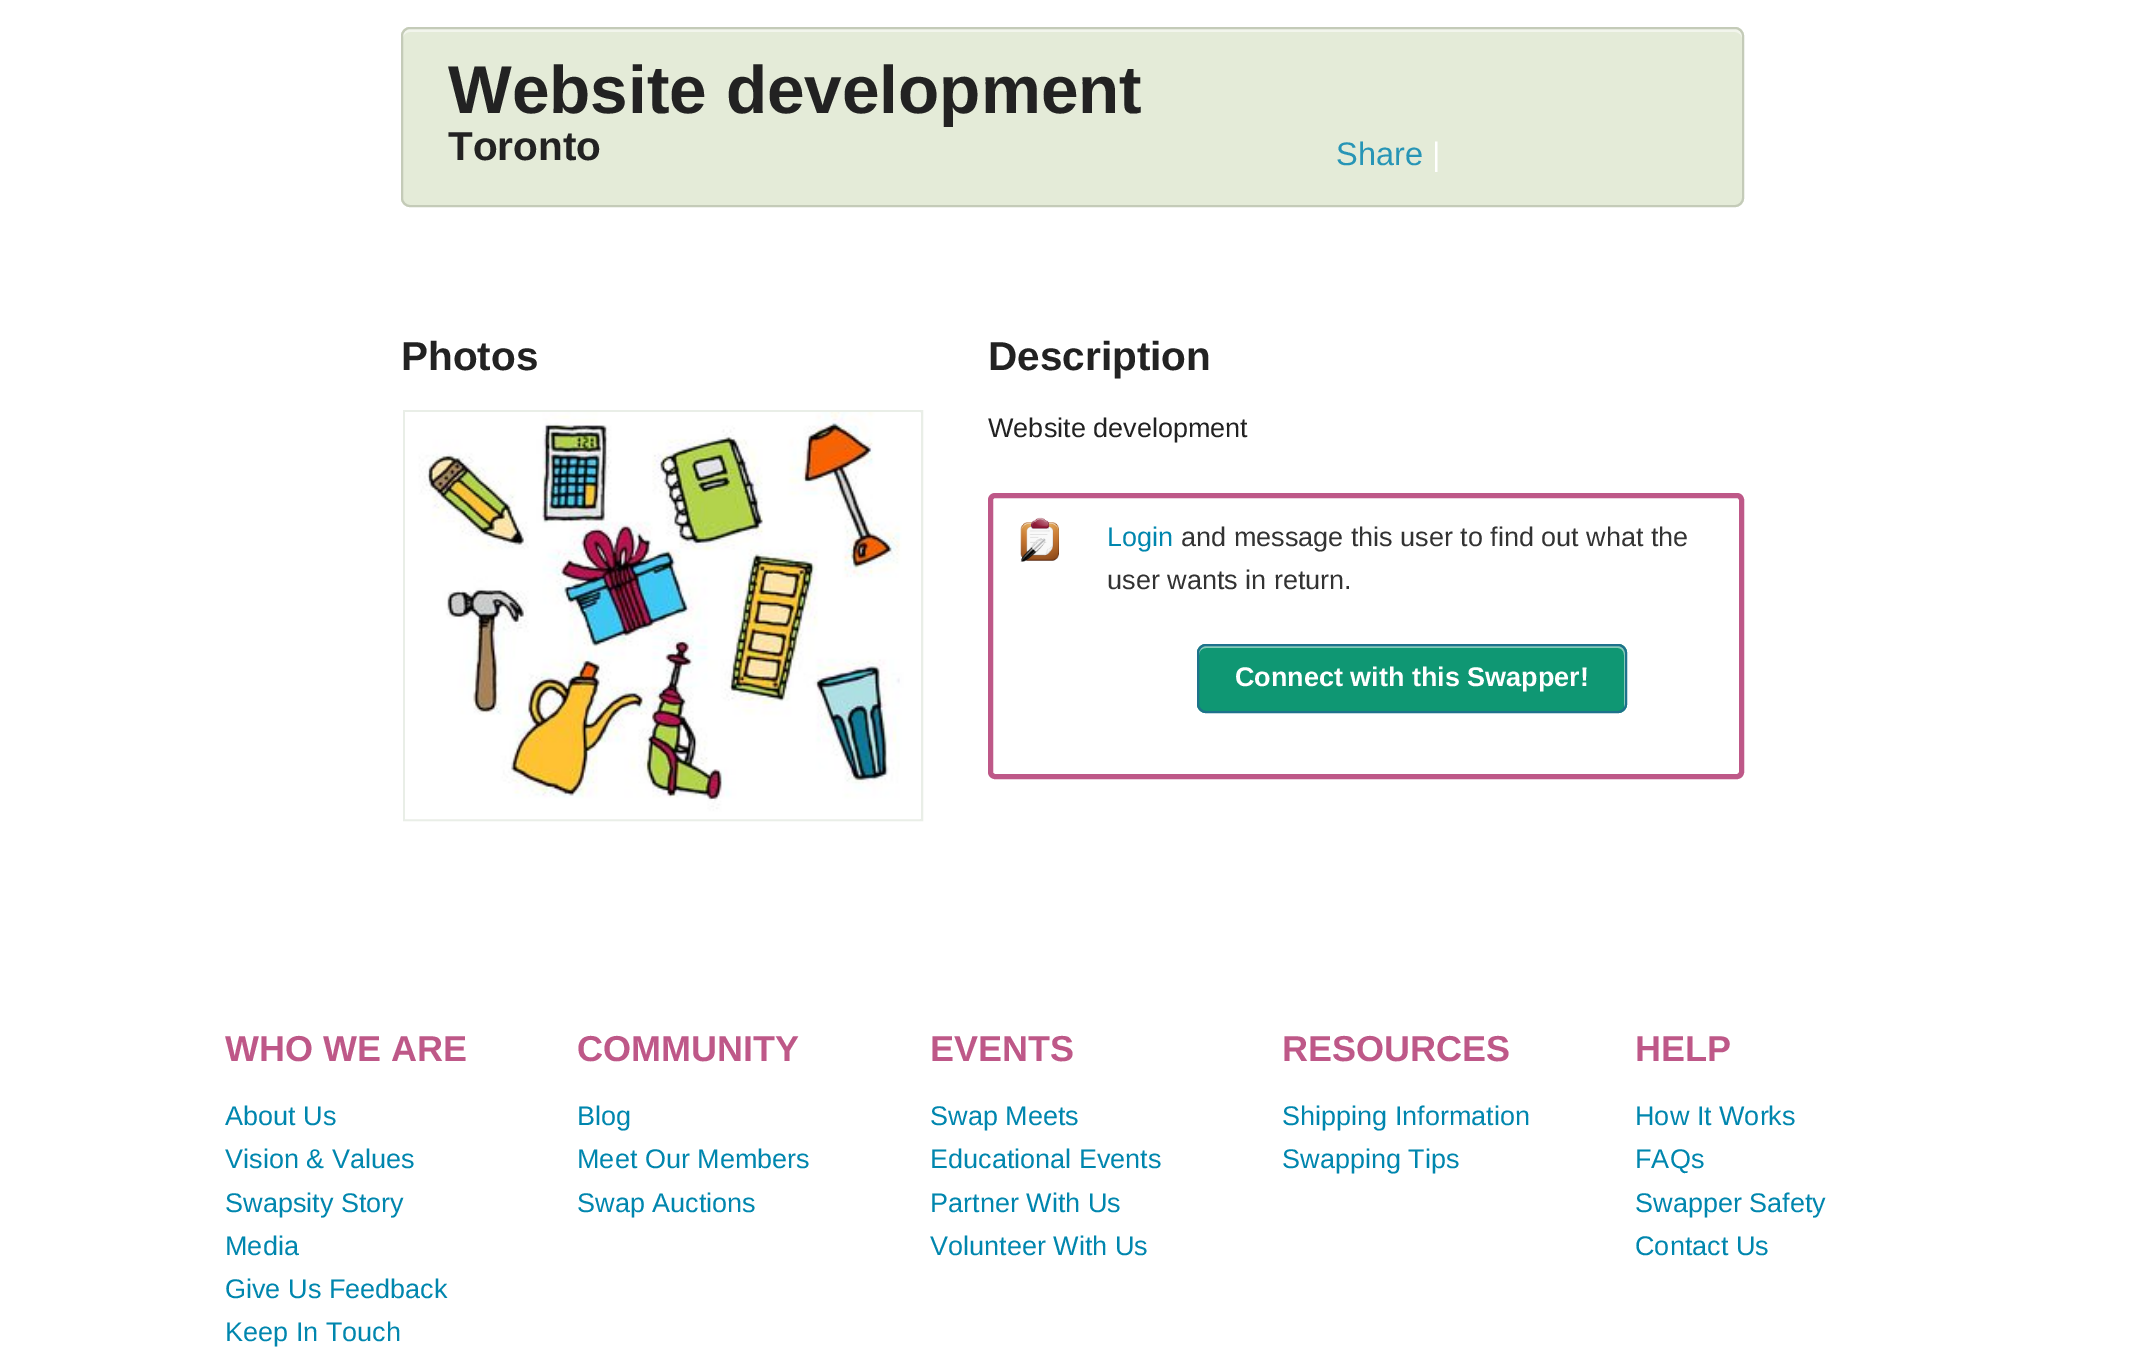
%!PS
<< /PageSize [2144 1370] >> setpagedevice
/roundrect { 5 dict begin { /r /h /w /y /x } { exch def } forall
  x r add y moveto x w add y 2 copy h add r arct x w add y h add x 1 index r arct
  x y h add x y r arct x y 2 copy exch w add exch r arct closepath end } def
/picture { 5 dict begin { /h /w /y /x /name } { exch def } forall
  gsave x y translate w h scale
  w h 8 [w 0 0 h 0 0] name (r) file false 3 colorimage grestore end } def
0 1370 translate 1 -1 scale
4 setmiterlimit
1 setgray
0 0 2144 1370 rectfill
0.894 0.922 0.847 setrgbcolor
401 27 1343 180 9 roundrect fill
0.949 0.961 0.925 setrgbcolor
newpath 410 32 moveto 1735 32 lineto 1738 32 1742 35 1742 38 curveto 1742 36 lineto 1742 32 1739 29 1735 29 curveto 410 29 lineto 406 29 403 32 403 36 curveto 403 38 lineto 403 35 406 32 410 32 curveto closepath fill
0.769 0.796 0.722 setrgbcolor
2 setlinewidth
402 28 1341 178 8 roundrect stroke
/LiberationSans-Bold [67.5 0 0 -67.5 0 0] selectfont
0.133 setgray
448 113 moveto (Website development) show
/LiberationSans-Bold [40.5 0 0 -40.5 0 0] selectfont
448 160 moveto (Toronto) show
/LiberationSans-Regular [32.5 0 0 -32.5 0 0] selectfont
0.153 0.584 0.714 setrgbcolor
1336 165 moveto (Share) show
1 setgray
1432 165 moveto (|) show
/LiberationSans-Bold [40.5 0 0 -40.5 0 0] selectfont
0.133 setgray
401 370 moveto (Photos) show
0.914 0.933 0.906 setrgbcolor
404 411 518 409 rectstroke
(img1.rgb) 405 412 515 408 picture
0.133 setgray
988 370 moveto (Description) show
/LiberationSans-Regular [27 0 0 -27 0 0] selectfont
988 437 moveto (Website development) show
0.745 0.345 0.533 setrgbcolor
5 setlinewidth
990.5 495.5 751 281 4.5 roundrect stroke
(img2.rgb) 1020 517 39 45 picture
0 0.525 0.682 setrgbcolor
1107 546 moveto (Login) show
0.2 setgray
1181 546 moveto (and message this user to find out what the) show
1107 589 moveto (user wants in return.) show
0.059 0.592 0.451 setrgbcolor
1197 644 430 69 9 roundrect fill
0.529 0.796 0.725 setrgbcolor
newpath 1206 648 moveto 1618 648 lineto 1621 648 1624 651 1624 655 curveto 1624 708 lineto 1625 707 1625 705 1625 704 curveto 1625 653 lineto 1625 649 1622 646 1618 646 curveto 1206 646 lineto 1202 646 1199 649 1199 653 curveto 1199 655 lineto 1199 651 1202 648 1206 648 curveto closepath fill
0.118 0.447 0.549 setrgbcolor
2 setlinewidth
1198 645 428 67 8 roundrect stroke
/LiberationSans-Bold [27 0 0 -27 0 0] selectfont
1 setgray
1235 686 moveto (Connect with this Swapper!) show
/LiberationSans-Bold [36 0 0 -36 0 0] selectfont
0.745 0.345 0.533 setrgbcolor
225 1061 moveto (WHO WE ARE) show
/LiberationSans-Regular [27 0 0 -27 0 0] selectfont
0 0.525 0.682 setrgbcolor
225 1125 moveto (About Us) show
225 1168 moveto (Vision & Values) show
225 1212 moveto (Swapsity Story) show
225 1255 moveto (Media) show
225 1298 moveto (Give Us Feedback) show
225 1341 moveto (Keep In Touch) show
/LiberationSans-Bold [36 0 0 -36 0 0] selectfont
0.745 0.345 0.533 setrgbcolor
577 1061 moveto (COMMUNITY) show
/LiberationSans-Regular [27 0 0 -27 0 0] selectfont
0 0.525 0.682 setrgbcolor
577 1125 moveto (Blog) show
577 1168 moveto (Meet Our Members) show
577 1212 moveto (Swap Auctions) show
/LiberationSans-Bold [36 0 0 -36 0 0] selectfont
0.745 0.345 0.533 setrgbcolor
930 1061 moveto (EVENTS) show
/LiberationSans-Regular [27 0 0 -27 0 0] selectfont
0 0.525 0.682 setrgbcolor
930 1125 moveto (Swap Meets) show
930 1168 moveto (Educational Events) show
930 1212 moveto (Partner With Us) show
930 1255 moveto (Volunteer With Us) show
/LiberationSans-Bold [36 0 0 -36 0 0] selectfont
0.745 0.345 0.533 setrgbcolor
1282 1061 moveto (RESOURCES) show
/LiberationSans-Regular [27 0 0 -27 0 0] selectfont
0 0.525 0.682 setrgbcolor
1282 1125 moveto (Shipping Information) show
1282 1168 moveto (Swapping Tips) show
/LiberationSans-Bold [36 0 0 -36 0 0] selectfont
0.745 0.345 0.533 setrgbcolor
1635 1061 moveto (HELP) show
/LiberationSans-Regular [27 0 0 -27 0 0] selectfont
0 0.525 0.682 setrgbcolor
1635 1125 moveto (How It Works) show
1635 1168 moveto (FAQs) show
1635 1212 moveto (Swapper Safety) show
1635 1255 moveto (Contact Us) show
showpage
